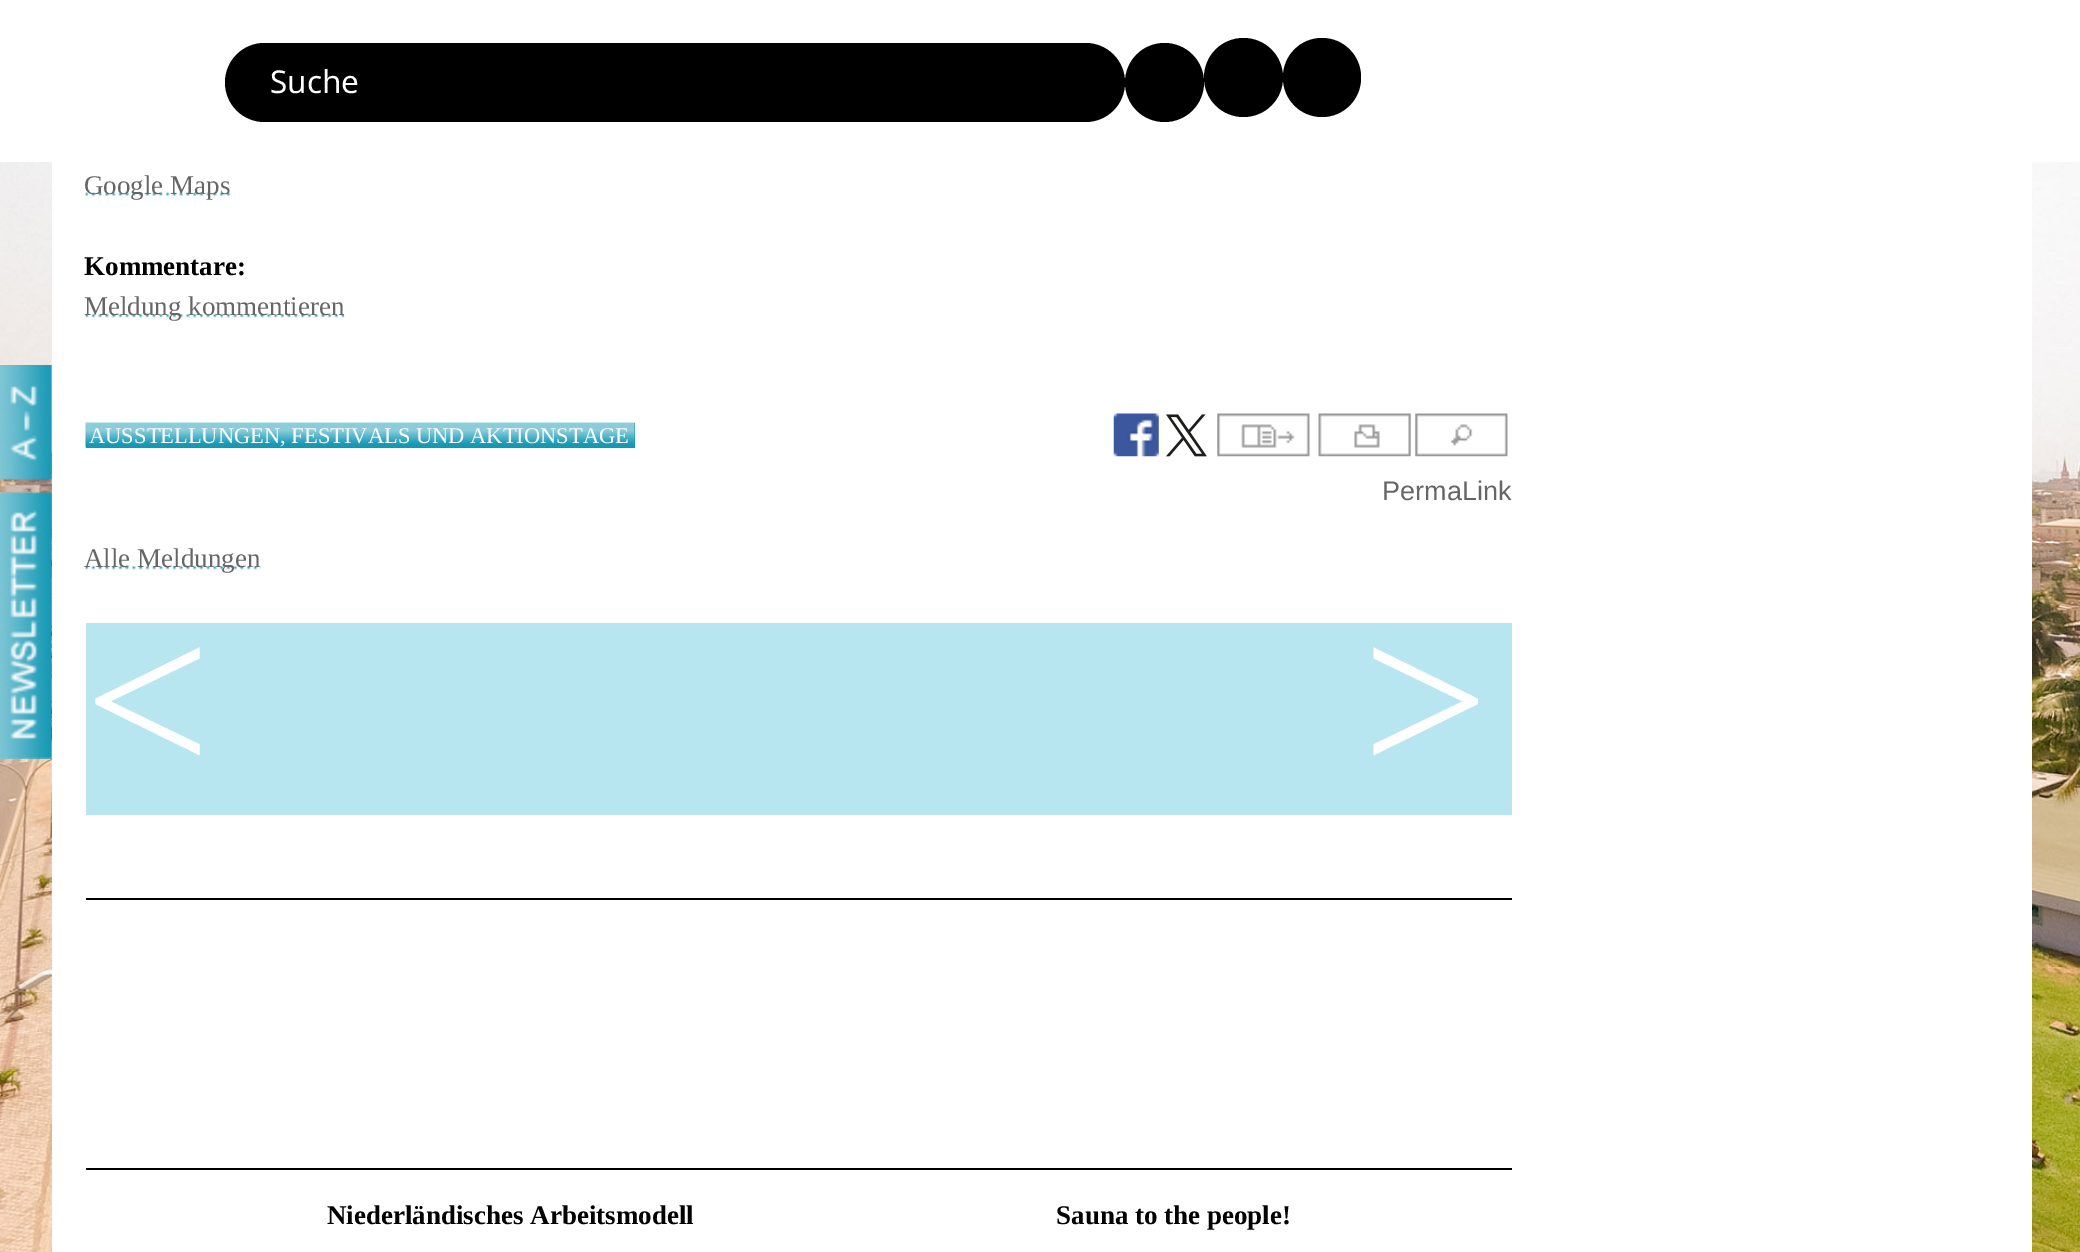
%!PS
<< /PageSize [2080 1252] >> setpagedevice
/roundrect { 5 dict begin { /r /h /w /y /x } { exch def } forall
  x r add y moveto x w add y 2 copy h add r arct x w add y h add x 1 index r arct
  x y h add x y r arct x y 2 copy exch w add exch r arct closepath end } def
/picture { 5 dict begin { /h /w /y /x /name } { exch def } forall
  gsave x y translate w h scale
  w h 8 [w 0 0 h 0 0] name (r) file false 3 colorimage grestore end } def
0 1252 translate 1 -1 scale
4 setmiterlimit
1 setgray
0 0 2080 1252 rectfill
(img1.rgb) 0 162 2080 1090 picture
0 setgray
225 43 900 79 39.5 roundrect fill
/NotoSans-Regular [31.5 0 0 -31.5 0 0] selectfont
1 setgray
270 93 moveto (Suche) show
0 setgray
newpath 1164.5 82.5 39.5 0 360 arc closepath fill
newpath 1243.5 77.5 39.5 0 360 arc closepath fill
1283 38 78 79 39 roundrect fill
1 setgray
52 162 1980 1090 rectfill
(img2.rgb) 0 365 52 115 picture
(img3.rgb) 0 492 52 267 picture
(img4.rgb) 85 192 146 4 picture
/LiberationSerif-Regular [27 0 0 -27 0 0] selectfont
0.4 setgray
84 194 moveto (Google Maps) show
/LiberationSerif-Bold [27 0 0 -27 0 0] selectfont
0 setgray
84 275 moveto (Kommentare:) show
(img5.rgb) 85 313 260 5 picture
/LiberationSerif-Regular [27 0 0 -27 0 0] selectfont
0.4 setgray
84 315 moveto (Meldung kommentieren) show
0.059 0.588 0.702 setrgbcolor
86 423 549 25 rectfill
(img6.rgb) 85 422 550 26 picture
/LiberationSerif-Regular [22.5 0 0 -22.5 0 0] selectfont
1 setgray
89 443 moveto (AUSSTELLUNGEN, FESTIVALS UND AKTIONSTAGE) show
(img7.rgb) 1113 413 46 44 picture
(img8.rgb) 1166 414 41 43 picture
(img9.rgb) 1217 413 93 44 picture
(img10.rgb) 1318 413 93 44 picture
(img11.rgb) 1415 413 93 44 picture
/LiberationSans-Regular [27 0 0 -27 0 0] selectfont
0.4 setgray
1382 500 moveto (PermaLink) show
(img12.rgb) 85 565 176 5 picture
/LiberationSerif-Regular [27 0 0 -27 0 0] selectfont
84 567 moveto (Alle Meldungen) show
0.718 0.902 0.941 setrgbcolor
86 623 1426 192 rectfill
/LiberationSerif-Regular [225 0 0 -225 0 0] selectfont
1 setgray
84 776 moveto (<) show
1362 776 moveto (>) show
0 setgray
86 898 1426 2 rectfill
86 1168 1426 2 rectfill
/LiberationSerif-Bold [27 0 0 -27 0 0] selectfont
327 1224 moveto (Niederländisches Arbeitsmodell) show
1056 1224 moveto (Sauna to the people!) show
showpage
